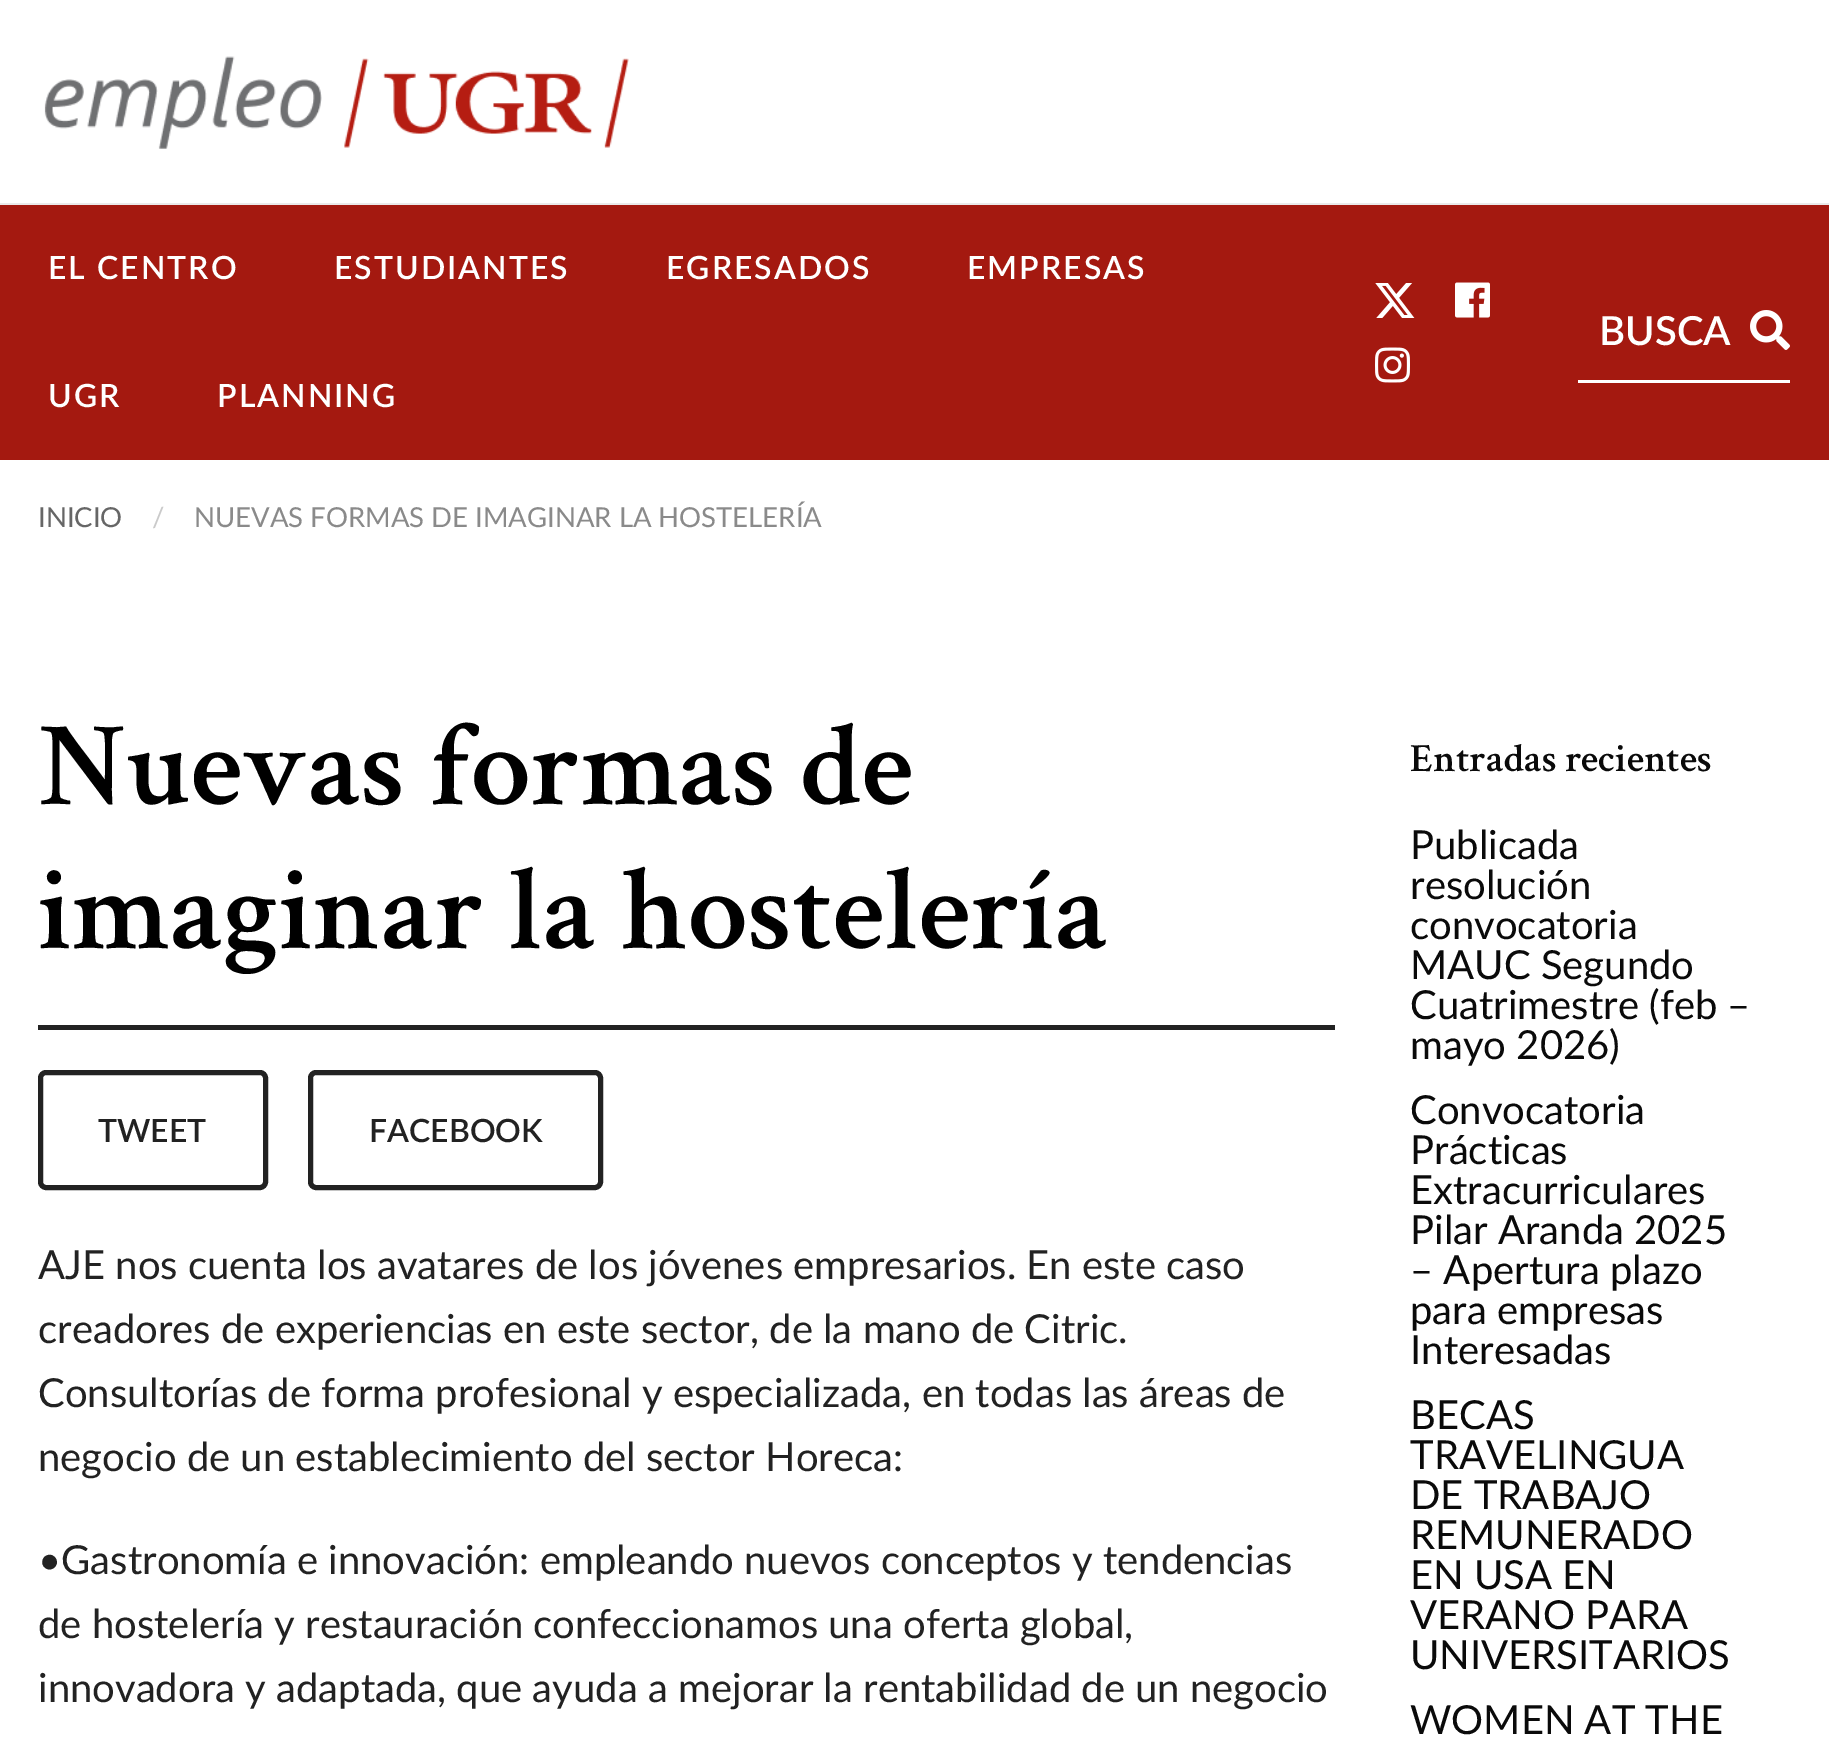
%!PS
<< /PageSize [1829 1752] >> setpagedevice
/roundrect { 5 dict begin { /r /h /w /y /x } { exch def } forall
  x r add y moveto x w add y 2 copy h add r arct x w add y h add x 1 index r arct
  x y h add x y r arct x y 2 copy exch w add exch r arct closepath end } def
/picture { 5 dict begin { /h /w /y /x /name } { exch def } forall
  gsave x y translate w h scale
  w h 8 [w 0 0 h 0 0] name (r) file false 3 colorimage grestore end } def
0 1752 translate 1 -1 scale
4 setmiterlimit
1 setgray
0 0 1829 1752 rectfill
(img1.rgb) 44 56 585 93 picture
0.918 setgray
0 203 1829 2 rectfill
0.643 0.098 0.063 setrgbcolor
0 205 1829 255 rectfill
/Lato-SemiBold [32 0 0 -32 0 0] selectfont
1 setgray
48 279 moveto 2 0 (EL CENTRO) ashow
334 279 moveto 2 0 (ESTUDIANTES) ashow
666 279 moveto 2 0 (EGRESADOS) ashow
967 279 moveto 2 0 (EMPRESAS) ashow
48 407 moveto 2 0 (UGR) ashow
217 407 moveto 2 0 (PLANNING) ashow
(img2.rgb) 1375 283 40 35 picture
(img3.rgb) 1455 282 35 36 picture
(img4.rgb) 1375 347 35 36 picture
1578 380 212 3 rectfill
/Lato-SemiBold [40 0 0 -40 0 0] selectfont
1599 345 moveto (BUSCA) show
(img5.rgb) 1750 310 40 40 picture
/Lato-Regular [27.5 0 0 -27.5 0 0] selectfont
0.4 setgray
38 527 moveto (INICIO) show
0.792 setgray
152 527 moveto (/) show
0.541 setgray
194 527 moveto (NUEVAS FORMAS DE IMAGINAR LA HOSTELERÍA) show
/CrimsonText-SemiBold [120 0 0 -120 0 0] selectfont
0 setgray
38 804 moveto (Nuevas formas de) show
38 948 moveto (imaginar la hostelería) show
0.133 setgray
38 1025 1297 5 rectfill
5 setlinewidth
40.5 1072.5 225 115 5.5 roundrect stroke
/Lato-SemiBold [32 0 0 -32 0 0] selectfont
98 1142 moveto (TWEET) show
310.5 1072.5 290 115 5.5 roundrect stroke
369 1142 moveto (FACEBOOK) show
/Lato-Regular [40 0 0 -40 0 0] selectfont
38 1279 moveto (AJE nos cuenta los avatares de los jóvenes empresarios. En este caso) show
38 1343 moveto (creadores de experiencias en este sector, de la mano de Citric.) show
38 1407 moveto (Consultorías de forma profesional y especializada, en todas las áreas de) show
38 1471 moveto (negocio de un establecimiento del sector Horeca:) show
38 1574 moveto (•Gastronomía e innovación: empleando nuevos conceptos y tendencias) show
38 1638 moveto (de hostelería y restauración confeccionamos una oferta global,) show
38 1702 moveto (innovadora y adaptada, que ayuda a mejorar la rentabilidad de un negocio) show
/CrimsonText-SemiBold [40 0 0 -40 0 0] selectfont
0.039 setgray
1410 771 moveto (Entradas recientes) show
/Lato-Regular [40 0 0 -40 0 0] selectfont
1410 859 moveto (Publicada) show
1410 899 moveto (resolución) show
1410 939 moveto (convocatoria) show
1410 979 moveto (MAUC Segundo) show
1410 1019 moveto (Cuatrimestre \(feb –) show
1410 1059 moveto (mayo 2026\)) show
1410 1124 moveto (Convocatoria) show
1410 1164 moveto (Prácticas) show
1410 1204 moveto (Extracurriculares) show
1410 1244 moveto (Pilar Aranda 2025) show
1410 1284 moveto (– Apertura plazo) show
1410 1324 moveto (para empresas) show
1410 1364 moveto (Interesadas) show
1410 1429 moveto (BECAS) show
1410 1469 moveto (TRAVELINGUA) show
1410 1509 moveto (DE TRABAJO) show
1410 1549 moveto (REMUNERADO) show
1410 1589 moveto (EN USA EN) show
1410 1629 moveto (VERANO PARA) show
1410 1669 moveto (UNIVERSITARIOS) show
1410 1734 moveto (WOMEN AT THE) show
showpage
